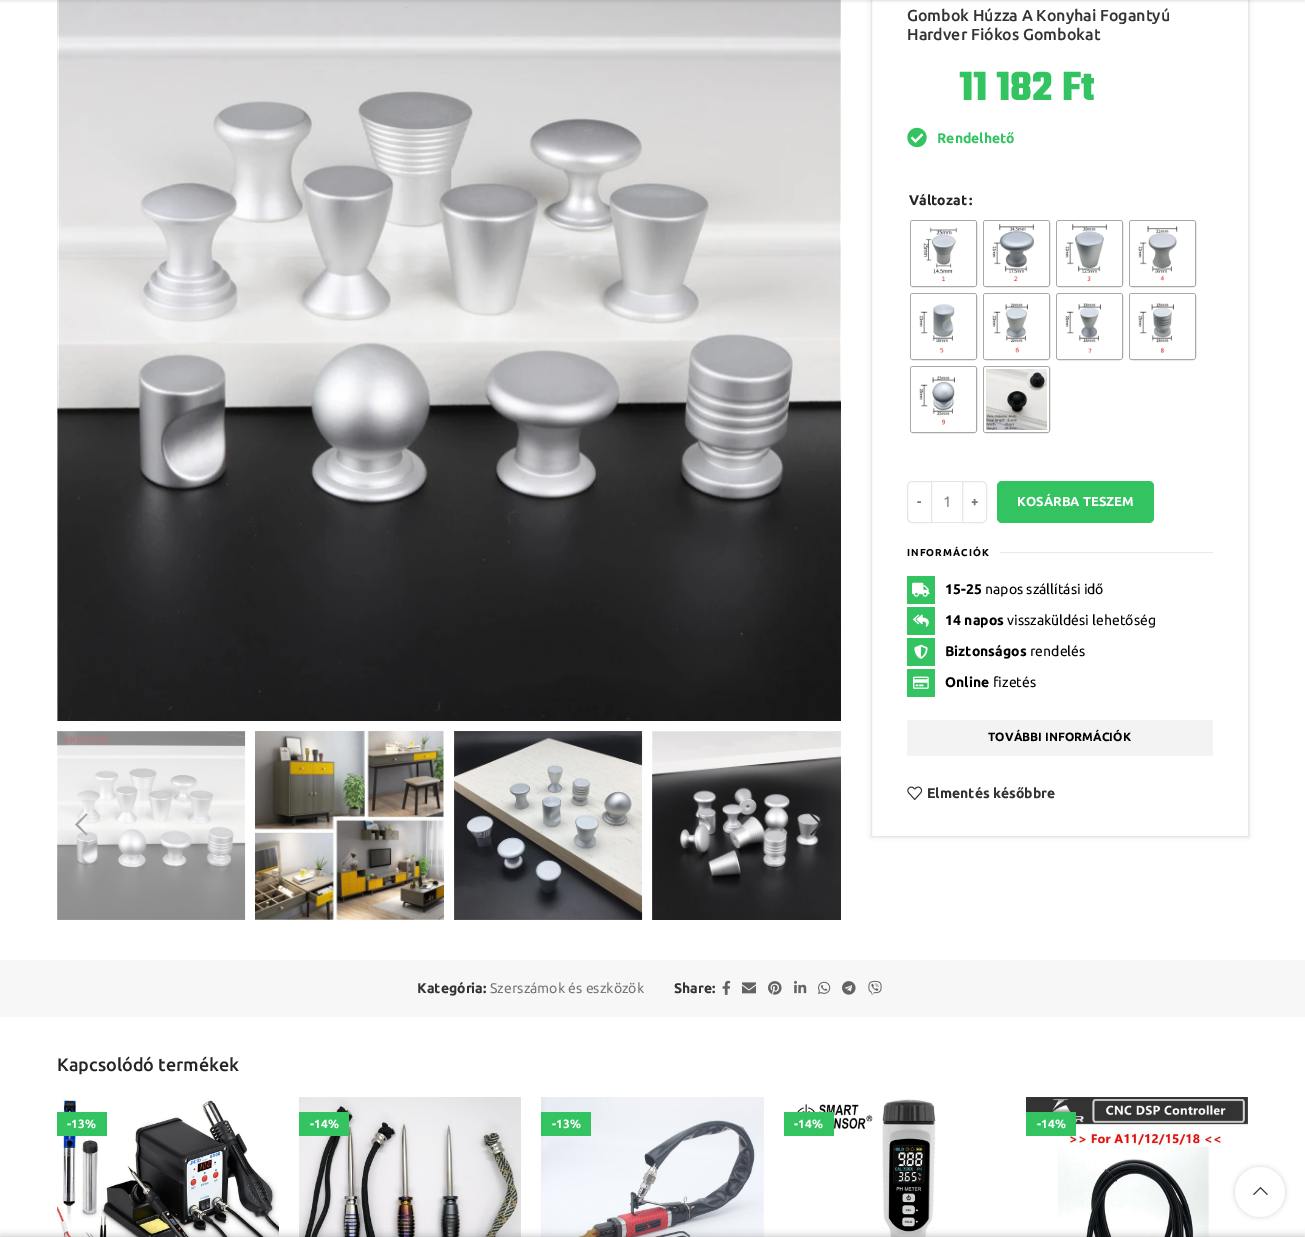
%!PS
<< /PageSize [1305 1237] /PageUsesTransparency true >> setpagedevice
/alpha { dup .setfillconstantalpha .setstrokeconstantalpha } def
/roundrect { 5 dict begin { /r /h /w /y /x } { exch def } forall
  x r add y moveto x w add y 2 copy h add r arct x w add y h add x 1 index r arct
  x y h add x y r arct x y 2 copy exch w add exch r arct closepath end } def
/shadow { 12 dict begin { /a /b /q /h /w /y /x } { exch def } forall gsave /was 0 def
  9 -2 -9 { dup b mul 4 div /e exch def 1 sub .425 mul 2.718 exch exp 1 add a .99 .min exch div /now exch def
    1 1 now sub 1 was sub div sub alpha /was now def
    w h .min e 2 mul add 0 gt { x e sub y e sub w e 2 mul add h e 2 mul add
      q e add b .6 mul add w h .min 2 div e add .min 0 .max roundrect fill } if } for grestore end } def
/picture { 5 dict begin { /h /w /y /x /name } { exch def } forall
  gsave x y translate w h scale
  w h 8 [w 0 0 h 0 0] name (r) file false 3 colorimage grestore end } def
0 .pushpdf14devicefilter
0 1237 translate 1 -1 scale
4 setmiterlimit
1 setgray
0 0 1305 1237 rectfill
(img1.rgb) 57 0 784 721 picture
gsave
newpath 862 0 moveto 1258 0 lineto 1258 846 lineto 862 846 lineto closepath 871 -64 moveto 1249 -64 lineto 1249 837 lineto 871 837 lineto closepath eoclip newpath
0 setgray
871 -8 378 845 0 2.5 0.1 shadow
grestore
0.91 setgray
871.5 -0.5 377 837 rectstroke
0 setgray
0 -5 1305 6 0 1.5 0.1 shadow
1 setgray
newpath 57.5 318.5 moveto 56.5 317.5 lineto 45 328.5 lineto 56.5 339.5 lineto 57.5 338.5 lineto 48 328.5 lineto closepath fill
(img2.rgb) 57 731 189 189 picture
(img3.rgb) 255 731 189 189 picture
(img4.rgb) 454 731 189 189 picture
(img5.rgb) 652 731 189 189 picture
0.647 setgray
newpath 87.5 814.5 moveto 86.5 813.5 lineto 75 824.5 lineto 86.5 835.5 lineto 87.5 834.5 lineto 78 824.5 lineto closepath fill
0.2 setgray
newpath 810 814.5 moveto 820 824.5 lineto 810 834.5 lineto 811.5 835.5 lineto 822.5 824.5 lineto 811.5 813.5 lineto closepath fill
/Ubuntu-Medium [16 0 0 -16 0 0] selectfont
907 21 moveto (Gombok Húzza A Konyhai Fogantyú) show
907 40 moveto (Hardver Fiókos Gombokat) show
/Teko-Bold [44 0 0 -44 0 0] selectfont
0.2 0.769 0.38 setrgbcolor
959 100 moveto (11 182 Ft) show
(img6.rgb) 907 127 20 21 picture
/Ubuntu-Bold [14 0 0 -14 0 0] selectfont
937 143 moveto (Rendelhető) show
0.141 setgray
909 205 moveto (Változat) show
969 205 moveto (:) show
0.659 setgray
910.5 220.5 66 66 2.5 roundrect stroke
1 setgray
911 221 65 65 2 roundrect fill
(img7.rgb) 923 227 35 55 picture
0.659 setgray
983.5 220.5 66 66 2.5 roundrect stroke
1 setgray
984 221 65 65 2 roundrect fill
(img8.rgb) 992 223 42 59 picture
0.659 setgray
1056.5 220.5 66 66 2.5 roundrect stroke
1 setgray
1057 221 65 65 2 roundrect fill
(img9.rgb) 1065 223 42 59 picture
0.659 setgray
1129.5 220.5 66 66 2.5 roundrect stroke
1 setgray
1130 221 65 65 2 roundrect fill
(img10.rgb) 1138 226 40 55 picture
0.659 setgray
910.5 293.5 66 66 2.5 roundrect stroke
1 setgray
911 294 65 65 2 roundrect fill
(img11.rgb) 919 304 36 49 picture
0.659 setgray
983.5 293.5 66 66 2.5 roundrect stroke
1 setgray
984 294 65 65 2 roundrect fill
(img12.rgb) 992 303 36 50 picture
0.659 setgray
1056.5 293.5 66 66 2.5 roundrect stroke
1 setgray
1057 294 65 65 2 roundrect fill
(img13.rgb) 1065 303 36 51 picture
0.659 setgray
1129.5 293.5 66 66 2.5 roundrect stroke
1 setgray
1130 294 65 65 2 roundrect fill
(img14.rgb) 1138 303 36 51 picture
0.659 setgray
910.5 366.5 66 66 2.5 roundrect stroke
1 setgray
911 367 65 65 2 roundrect fill
(img15.rgb) 919 376 36 49 picture
0.659 setgray
983.5 366.5 66 66 2.5 roundrect stroke
1 setgray
984 367 65 65 2 roundrect fill
(img16.rgb) 986 369 61 61 picture
0.902 setgray
newpath 912 481.5 moveto 931.5 481.5 lineto 931.5 522.5 lineto 912 522.5 lineto 909.5 522.5 907.5 520.5 907.5 518 curveto 907.5 486 lineto 907.5 483.5 909.5 481.5 912 481.5 curveto closepath stroke
/Ubuntu-Bold [13 0 0 -13 0 0] selectfont
0.467 setgray
917 506 moveto (-) show
0.902 setgray
932 481 30 1 rectfill
932 522 30 1 rectfill
/Ubuntu-Regular [15 0 0 -15 0 0] selectfont
0.467 setgray
943 507 moveto (1) show
0.902 setgray
newpath 962.5 481.5 moveto 982 481.5 lineto 984.5 481.5 986.5 483.5 986.5 486 curveto 986.5 518 lineto 986.5 520.5 984.5 522.5 982 522.5 curveto 962.5 522.5 lineto closepath stroke
/Ubuntu-Bold [13 0 0 -13 0 0] selectfont
0.467 setgray
971 506 moveto (+) show
0.2 0.769 0.38 setrgbcolor
997 481 157 42 5 roundrect fill
1 setgray
1017 506 moveto (KOSÁRBA TESZEM) show
/Ubuntu-Bold [10 0 0 -10 0 0] selectfont
0 setgray
907 556 moveto 1 0 (INFORMÁCIÓK) ashow
0.91 setgray
1000 552 213 1 rectfill
0.2 0.769 0.38 setrgbcolor
907 576 28 28 rectfill
(img17.rgb) 912 582 18 15 picture
/Ubuntu-Bold [14 0 0 -14 0 0] selectfont
0 setgray
945 594 moveto (15-25) show
/Ubuntu-Regular [14 0 0 -14 0 0] selectfont
985 594 moveto (napos szállítási idő) show
0.2 0.769 0.38 setrgbcolor
907 607 28 28 rectfill
(img18.rgb) 913 614 16 13 picture
/Ubuntu-Bold [14 0 0 -14 0 0] selectfont
0 setgray
945 625 moveto (14 napos) show
/Ubuntu-Regular [14 0 0 -14 0 0] selectfont
1007 625 moveto (visszaküldési lehetőség) show
0.2 0.769 0.38 setrgbcolor
907 638 28 28 rectfill
(img19.rgb) 914 644 14 15 picture
/Ubuntu-Bold [14 0 0 -14 0 0] selectfont
0 setgray
945 656 moveto (Biztonságos) show
/Ubuntu-Regular [14 0 0 -14 0 0] selectfont
1030 656 moveto (rendelés) show
0.2 0.769 0.38 setrgbcolor
907 669 28 28 rectfill
(img20.rgb) 913 676 16 13 picture
/Ubuntu-Bold [14 0 0 -14 0 0] selectfont
0 setgray
945 687 moveto (Online) show
/Ubuntu-Regular [14 0 0 -14 0 0] selectfont
993 687 moveto (fizetés) show
0.953 setgray
907 720 306 36 rectfill
/Ubuntu-Bold [12 0 0 -12 0 0] selectfont
0 setgray
988 741 moveto (TOVÁBBI INFORMÁCIÓK) show
(img21.rgb) 907 786 16 14 picture
/Ubuntu-Bold [14 0 0 -14 0 0] selectfont
0.2 setgray
927 798 moveto (Elmentés későbbre) show
0.969 setgray
0 960 1305 57 rectfill
0.2 setgray
417 993 moveto (Kategória:) show
/Ubuntu-Regular [14 0 0 -14 0 0] selectfont
0.467 setgray
490 993 moveto (Szerszámok és eszközök) show
/Ubuntu-Bold [14 0 0 -14 0 0] selectfont
0.2 setgray
674 993 moveto (Share:) show
(img22.rgb) 722 980 9 15 picture
(img23.rgb) 742 982 14 12 picture
(img24.rgb) 768 981 14 14 picture
(img25.rgb) 794 980 13 14 picture
(img26.rgb) 818 981 13 13 picture
(img27.rgb) 842 981 14 14 picture
(img28.rgb) 868 980 14 15 picture
/Ubuntu-Medium [18 0 0 -18 0 0] selectfont
0.141 setgray
57 1071 moveto (Kapcsolódó termékek) show
(img29.rgb) 57 1097 222 140 picture
0.2 0.769 0.38 setrgbcolor
57 1112 50 24 rectfill
/Ubuntu-Bold [12 0 0 -12 0 0] selectfont
1 setgray
67 1128 moveto (-13%) show
(img30.rgb) 299 1097 222 140 picture
0.2 0.769 0.38 setrgbcolor
299 1112 50 24 rectfill
1 setgray
310 1128 moveto (-14%) show
(img31.rgb) 541 1097 223 140 picture
0.2 0.769 0.38 setrgbcolor
541 1112 50 24 rectfill
1 setgray
552 1128 moveto (-13%) show
(img32.rgb) 792 1099 144 138 picture
0.2 0.769 0.38 setrgbcolor
784 1112 50 24 rectfill
1 setgray
794 1128 moveto (-14%) show
(img33.rgb) 1026 1097 222 140 picture
0.2 0.769 0.38 setrgbcolor
1026 1112 50 24 rectfill
1 setgray
1037 1128 moveto (-14%) show
gsave
newpath 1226 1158 moveto 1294 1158 lineto 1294 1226 lineto 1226 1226 lineto closepath 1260 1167 moveto 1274 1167 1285 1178 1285 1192 curveto 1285 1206 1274 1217 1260 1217 curveto 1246 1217 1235 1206 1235 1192 curveto 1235 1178 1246 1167 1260 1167 curveto closepath eoclip newpath
0 setgray
1235 1167 50 50 25 2.5 0.17 shadow
grestore
0.9 alpha
newpath 1260 1192 25 0 360 arc closepath fill
1 alpha
(img34.rgb) 1253 1186 15 9 picture
0 setgray
0 1237 1305 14 0 4.5 0.12 shadow
0 1237 1305 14 0 4.5 0.14 shadow
.poppdf14devicefilter showpage
